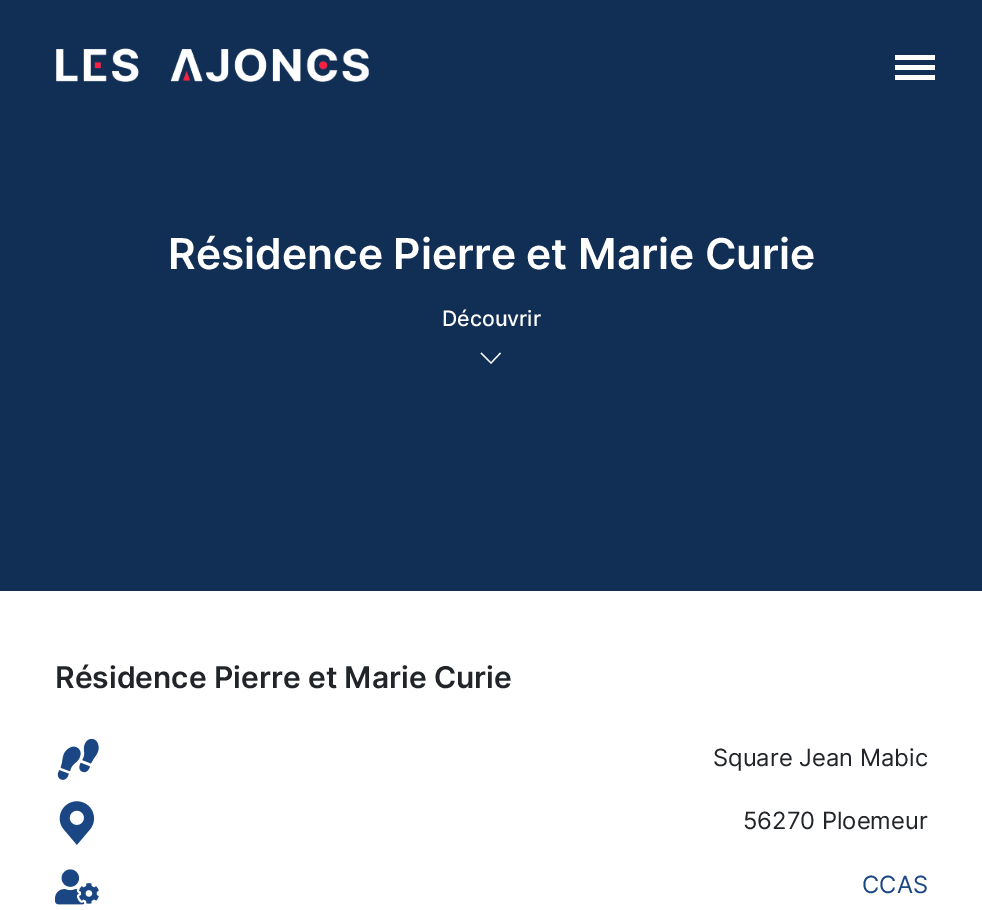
%!PS
<< /PageSize [982 910] >> setpagedevice
/picture { 5 dict begin { /h /w /y /x /name } { exch def } forall
  gsave x y translate w h scale
  w h 8 [w 0 0 h 0 0] name (r) file false 3 colorimage grestore end } def
0 910 translate 1 -1 scale
4 setmiterlimit
1 setgray
0 0 982 910 rectfill
0.067 0.18 0.333 setrgbcolor
0 0 982 591 rectfill
(img1.rgb) 56 48 313 34 picture
1 setgray
895 55 40 5 rectfill
895 65 40 5 rectfill
895 75 40 5 rectfill
/Inter-SemiBold [42.5 0 0 -42.5 0 0] selectfont
168 269 moveto (Résidence Pierre et Marie Curie) show
/Inter-Medium [21.25 0 0 -21.25 0 0] selectfont
442 326 moveto (Découvrir) show
1.2 setlinewidth
newpath 481 353 moveto 491 363 lineto 500.5 353 lineto stroke
/Inter-SemiBold [30 0 0 -30 0 0] selectfont
0.129 0.145 0.161 setrgbcolor
55 688 moveto (Résidence Pierre et Marie Curie) show
(img2.rgb) 57 738 42 42 picture
/Inter-Regular [23.75 0 0 -23.75 0 0] selectfont
713 766 moveto (Square Jean Mabic) show
(img3.rgb) 59 801 36 44 picture
743 829 moveto (56270 Ploemeur) show
(img4.rgb) 55 869 44 36 picture
0.102 0.275 0.518 setrgbcolor
862 893 moveto (CCAS) show
showpage
